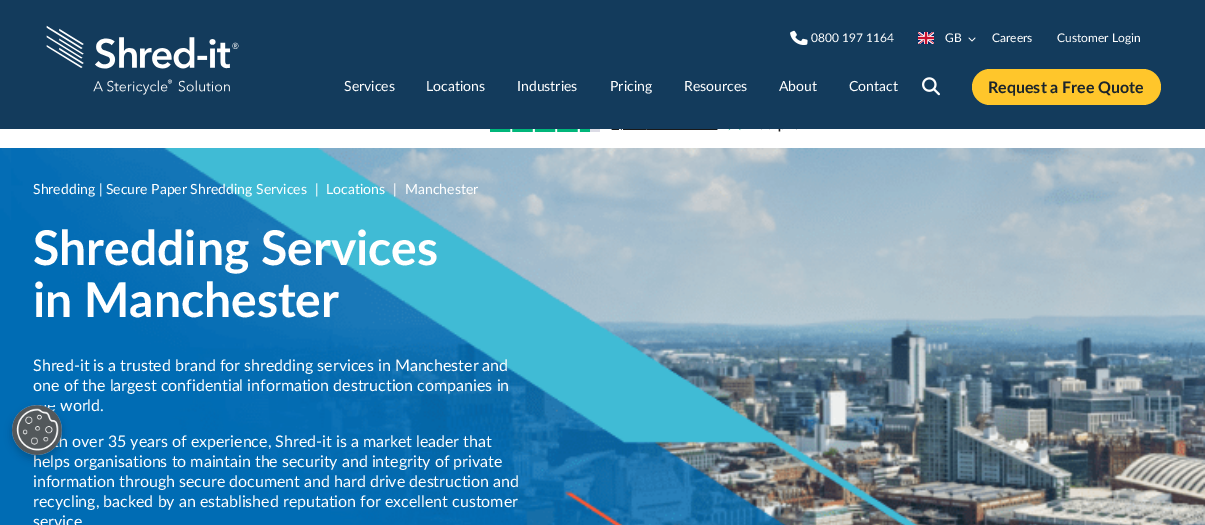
%!PS
<< /PageSize [1205 525] /PageUsesTransparency true >> setpagedevice
/alpha { dup .setfillconstantalpha .setstrokeconstantalpha } def
/roundrect { 5 dict begin { /r /h /w /y /x } { exch def } forall
  x r add y moveto x w add y 2 copy h add r arct x w add y h add x 1 index r arct
  x y h add x y r arct x y 2 copy exch w add exch r arct closepath end } def
/shadow { 12 dict begin { /a /b /q /h /w /y /x } { exch def } forall gsave /was 0 def
  9 -2 -9 { dup b mul 4 div /e exch def 1 sub .425 mul 2.718 exch exp 1 add a .99 .min exch div /now exch def
    1 1 now sub 1 was sub div sub alpha /was now def
    w h .min e 2 mul add 0 gt { x e sub y e sub w e 2 mul add h e 2 mul add
      q e add b .6 mul add w h .min 2 div e add .min 0 .max roundrect fill } if } for grestore end } def
/picture { 5 dict begin { /h /w /y /x /name } { exch def } forall
  gsave x y translate w h scale
  w h 8 [w 0 0 h 0 0] name (r) file false 3 colorimage grestore end } def
0 .pushpdf14devicefilter
0 525 translate 1 -1 scale
4 setmiterlimit
1 setgray
0 0 1205 525 rectfill
0.075 0.231 0.361 setrgbcolor
0 0 1205 129 rectfill
(img1.rgb) 46 25 193 70 picture
(img2.rgb) 790 30 18 15 picture
/Lato-Regular [12 0 0 -12 0 0] selectfont
1 setgray
811 42 moveto (0800 197 1164) show
(img3.rgb) 918 32 16 12 picture
945 42 moveto (GB) show
(img4.rgb) 968 37 8 5 picture
992 42 moveto (Careers) show
1057 42 moveto (Customer Login) show
/Lato-Regular [14 0 0 -14 0 0] selectfont
344 91 moveto (Services) show
426 91 moveto (Locations) show
517 91 moveto (Industries) show
610 91 moveto (Pricing) show
684 91 moveto (Resources) show
779 91 moveto (About) show
849 91 moveto (Contact) show
(img5.rgb) 922 77 18 19 picture
1 0.776 0.169 setrgbcolor
972 69 189 36 18 roundrect fill
/Lato-Bold [16 0 0 -16 0 0] selectfont
0.102 0.141 0.169 setrgbcolor
988 93 moveto (Request a Free Quote) show
(img6.rgb) 490 129 307 3 picture
(img7.rgb) 0 148 1205 377 picture
/Lato-Regular [14 0 0 -14 0 0] selectfont
1 setgray
33 194 moveto (Shredding | Secure Paper Shredding Services) show
315 194 moveto (|) show
326 194 moveto (Locations) show
393 194 moveto (|) show
405 194 moveto (Manchester) show
/Lato-Bold [48 0 0 -48 0 0] selectfont
33 265 moveto (Shredding Services) show
33 317 moveto (in Manchester) show
/Lato-Regular [16 0 0 -16 0 0] selectfont
33 371 moveto (Shred-it is a trusted brand for shredding services in Manchester and) show
33 391 moveto (one of the largest confidential information destruction companies in) show
60 411 moveto (world.) show
59 447 moveto (h over 35 years of experience, Shred-it is a market leader that) show
33 467 moveto (helps organisations to maintain the security and integrity of private) show
33 487 moveto (information through secure document and hard drive destruction and) show
33 507 moveto (recycling, backed by an established reputation for excellent customer) show
33 527 moveto (service) show
0 setgray
12 409 50 50 25 4 0.2 shadow
0.416 0.667 0.894 setrgbcolor
newpath 37 430 25 0 360 arc closepath fill
(img8.rgb) 12 405 50 50 picture
.poppdf14devicefilter showpage
